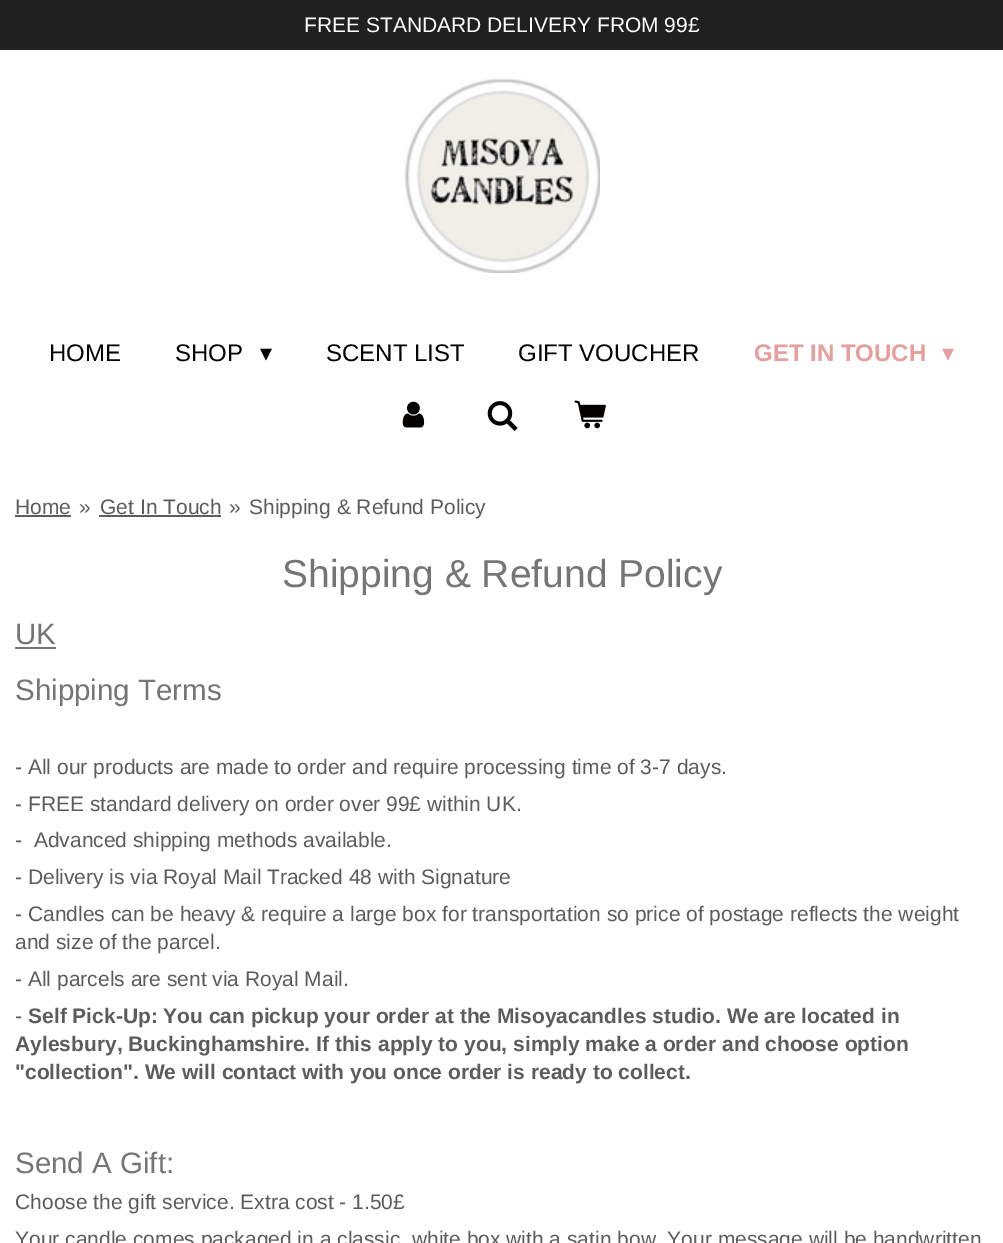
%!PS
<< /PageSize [1003 1243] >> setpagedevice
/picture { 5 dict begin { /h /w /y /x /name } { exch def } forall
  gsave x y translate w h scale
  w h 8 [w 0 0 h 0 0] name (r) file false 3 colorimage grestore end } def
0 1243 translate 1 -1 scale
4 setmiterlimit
1 setgray
0 0 1003 1243 rectfill
0.125 setgray
0 0 1003 50 rectfill
/LiberationSans-Regular [21 0 0 -21 0 0] selectfont
1 setgray
304 32 moveto (FREE STANDARD DELIVERY FROM 99£) show
(img1.rgb) 405 79 195 194 picture
/LiberationSans-Regular [24 0 0 -24 0 0] selectfont
0.012 0 0 setrgbcolor
49 361 moveto (HOME) show
175 361 moveto (SHOP) show
/DejaVuSans-Regular [24 0 0 -24 0 0] selectfont
260 361 moveto (▾) show
/LiberationSans-Regular [24 0 0 -24 0 0] selectfont
326 361 moveto (SCENT LIST) show
518 361 moveto (GIFT VOUCHER) show
/LiberationSans-Bold [24 0 0 -24 0 0] selectfont
0.902 0.62 0.62 setrgbcolor
754 361 moveto (GET IN TOUCH) show
/DejaVuSans-Regular [24 0 0 -24 0 0] selectfont
942 361 moveto (▾) show
(img2.rgb) 402 401 23 27 picture
(img3.rgb) 487 401 31 30 picture
(img4.rgb) 574 400 32 29 picture
/LiberationSans-Regular [21 0 0 -21 0 0] selectfont
0.361 setgray
15 514 moveto (Home) show
15 515 56 2 rectfill
79 514 moveto (») show
100 514 moveto (Get In Touch) show
99 515 122 2 rectfill
229 514 moveto (») show
249 514 moveto (Shipping & Refund Policy) show
/LiberationSans-Regular [39 0 0 -39 0 0] selectfont
0.459 setgray
282 587 moveto (Shipping & Refund Policy) show
/LiberationSans-Regular [29.5 0 0 -29.5 0 0] selectfont
15 644 moveto (UK) show
15 647 41 2 rectfill
15 700 moveto (Shipping Terms) show
/LiberationSans-Regular [21 0 0 -21 0 0] selectfont
0.361 setgray
15 774 moveto (- All our products are made to order and require processing time of 3-7 days.) show
15 811 moveto (- FREE standard delivery on order over 99£ within UK.) show
15 847 moveto (-  Advanced shipping methods available.) show
15 884 moveto (- Delivery is via Royal Mail Tracked 48 with Signature) show
15 921 moveto (- Candles can be heavy & require a large box for transportation so price of postage reflects the weight) show
15 949 moveto (and size of the parcel.) show
15 986 moveto (- All parcels are sent via Royal Mail.) show
15 1023 moveto (-) show
/LiberationSans-Bold [21 0 0 -21 0 0] selectfont
28 1023 moveto (Self Pick-Up: You can pickup your order at the Misoyacandles studio. We are located in) show
15 1051 moveto (Aylesbury, Buckinghamshire. If this apply to you, simply make a order and choose option) show
15 1079 moveto ("collection". We will contact with you once order is ready to collect.) show
/LiberationSans-Regular [29.5 0 0 -29.5 0 0] selectfont
0.459 setgray
15 1173 moveto (Send A Gift:) show
/LiberationSans-Regular [21 0 0 -21 0 0] selectfont
0.361 setgray
15 1209 moveto (Choose the gift service. Extra cost - 1.50£) show
15 1246 moveto (Your candle comes packaged in a classic, white box with a satin bow. Your message will be handwritten) show
showpage
